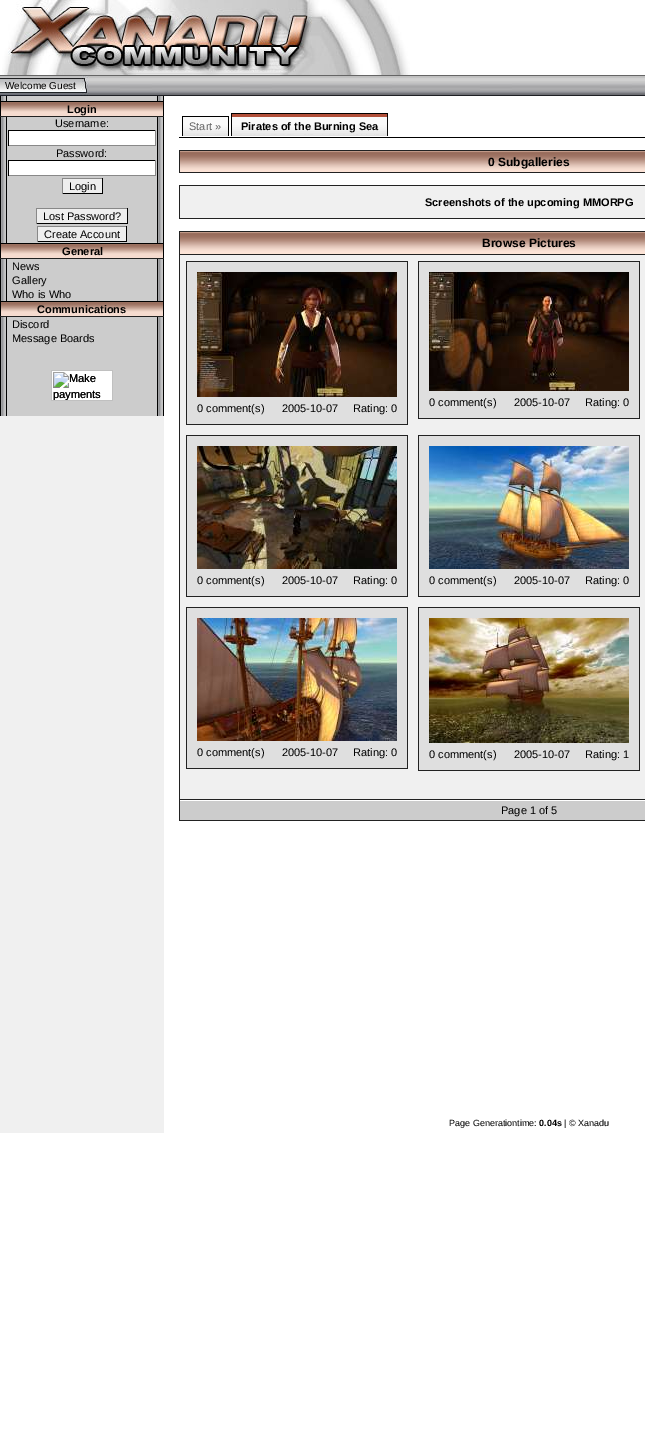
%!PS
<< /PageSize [645 1444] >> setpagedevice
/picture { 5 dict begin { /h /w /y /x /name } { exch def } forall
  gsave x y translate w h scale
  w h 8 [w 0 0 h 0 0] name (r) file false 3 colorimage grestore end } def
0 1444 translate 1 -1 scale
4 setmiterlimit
1 setgray
0 0 645 1444 rectfill
(img1.rgb) 2 0 408 75 picture
(img2.rgb) 0 75 645 21 picture
(img3.rgb) 0 78 81 18 picture
/LiberationSans-Regular [10 0 0 -10 0 0] selectfont
0 setgray
5 89 moveto (Welcome Guest) show
(img4.rgb) 81 75 8 21 picture
0.941 setgray
0 416 164 717 rectfill
0 setgray
163 96 1 320 rectfill
0 96 1 320 rectfill
(img5.rgb) 1 96 5 5 picture
0 101 164 1 rectfill
6 96 1 6 rectfill
0.8 setgray
7 96 151 5 rectfill
(img5.rgb) 158 96 5 5 picture
0 setgray
157 96 1 6 rectfill
(img6.rgb) 1 102 162 14 picture
0 243 164 1 rectfill
6 116 1 128 rectfill
157 116 1 128 rectfill
0.133 setgray
0 116 164 1 rectfill
/LiberationSans-Bold [11 0 0 -11 0 0] selectfont
0 setgray
67 113 moveto (Login) show
(img7.rgb) 1 117 5 126 picture
0.8 setgray
7 117 150 126 rectfill
/LiberationSans-Regular [11 0 0 -11 0 0] selectfont
0 setgray
55 127 moveto (Username:) show
1 setgray
9 131 146 14 rectfill
0 setgray
8 130 148 1 rectfill
0.533 setgray
155 130 1 16 rectfill
8 145 148 1 rectfill
0 setgray
8 130 1 16 rectfill
56 157 moveto (Password:) show
1 setgray
9 161 146 14 rectfill
0 setgray
8 160 148 1 rectfill
0.533 setgray
155 160 1 16 rectfill
8 175 148 1 rectfill
0 setgray
8 160 1 16 rectfill
0.933 setgray
63 179 39 14 rectfill
0.533 setgray
62 178 41 1 rectfill
0 setgray
102 178 1 16 rectfill
62 193 41 1 rectfill
0.533 setgray
62 178 1 16 rectfill
0 setgray
69 190 moveto (Login) show
0.933 setgray
37 209 90 14 rectfill
0.533 setgray
36 208 92 1 rectfill
0 setgray
127 208 1 16 rectfill
36 223 92 1 rectfill
0.533 setgray
36 208 1 16 rectfill
0 setgray
43 220 moveto (Lost Password?) show
0.933 setgray
38 227 88 14 rectfill
0.533 setgray
37 226 90 1 rectfill
0 setgray
126 226 1 16 rectfill
37 241 90 1 rectfill
0.533 setgray
37 226 1 16 rectfill
0 setgray
44 238 moveto (Create Account) show
(img7.rgb) 158 117 5 126 picture
(img6.rgb) 1 244 162 14 picture
0 301 164 1 rectfill
6 258 1 44 rectfill
157 258 1 44 rectfill
0.133 setgray
0 258 164 1 rectfill
/LiberationSans-Bold [11 0 0 -11 0 0] selectfont
0 setgray
62 255 moveto (General) show
(img8.rgb) 1 259 5 14 picture
0.8 setgray
7 259 150 42 rectfill
/LiberationSans-Regular [11 0 0 -11 0 0] selectfont
0 setgray
12 270 moveto (News) show
(img8.rgb) 158 259 5 14 picture
(img9.rgb) 1 273 5 14 picture
12 284 moveto (Gallery) show
(img9.rgb) 158 273 5 14 picture
(img9.rgb) 1 287 5 14 picture
12 298 moveto (Who is Who) show
(img9.rgb) 158 287 5 14 picture
(img6.rgb) 1 302 162 14 picture
6 316 1 100 rectfill
157 316 1 100 rectfill
0.133 setgray
0 316 164 1 rectfill
/LiberationSans-Bold [11 0 0 -11 0 0] selectfont
0 setgray
37 313 moveto (Communications) show
(img9.rgb) 1 402 5 14 picture
(img9.rgb) 158 402 5 14 picture
(img8.rgb) 1 317 5 14 picture
0.8 setgray
7 317 150 99 rectfill
/LiberationSans-Regular [11 0 0 -11 0 0] selectfont
0 setgray
12 328 moveto (Discord) show
(img8.rgb) 158 317 5 14 picture
(img9.rgb) 1 331 5 14 picture
12 342 moveto (Message Boards) show
(img9.rgb) 158 331 5 14 picture
(img10.rgb) 1 345 5 57 picture
1 setgray
52 371 60 29 rectfill
(img11.rgb) 51 370 62 31 picture
0 setgray
69 382 moveto (Make) show
gsave
52 371 60 29 rectclip
53 398 moveto (payments) show
grestore
(img10.rgb) 158 345 5 57 picture
179 137 466 1 rectfill
(img12.rgb) 182 116 47 20 picture
182 117 1 19 rectfill
0.4 setgray
189 130 moveto (Start ») show
(img13.rgb) 231 113 157 23 picture
0 setgray
231 114 1 22 rectfill
/LiberationSans-Bold [11 0 0 -11 0 0] selectfont
241 130 moveto (Pirates of the Burning Sea) show
0.133 setgray
179 150 466 1 rectfill
179 172 466 1 rectfill
179 150 1 23 rectfill
(img14.rgb) 180 151 244 21 picture
(img15.rgb) 424 151 210 21 picture
/LiberationSans-Bold [12 0 0 -12 0 0] selectfont
0 setgray
488 166 moveto (0 Subgalleries) show
(img16.rgb) 634 151 11 21 picture
0.133 setgray
179 185 466 1 rectfill
179 218 466 1 rectfill
179 185 1 34 rectfill
0.941 setgray
180 186 465 32 rectfill
/LiberationSans-Bold [11 0 0 -11 0 0] selectfont
0 setgray
425 206 moveto (Screenshots of the upcoming MMORPG) show
0.133 setgray
179 231 466 1 rectfill
179 820 466 1 rectfill
179 231 1 590 rectfill
(img17.rgb) 180 232 209 22 picture
(img18.rgb) 389 232 256 22 picture
179 254 466 1 rectfill
/LiberationSans-Bold [12 0 0 -12 0 0] selectfont
0 setgray
482 247 moveto (Browse Pictures) show
0.941 setgray
180 255 465 544 rectfill
0.133 setgray
186 261 222 1 rectfill
0.875 setgray
187 419 221 5 rectfill
0.133 setgray
407 261 1 164 rectfill
186 424 222 1 rectfill
186 261 1 164 rectfill
0.875 setgray
187 262 220 140 rectfill
(img19.rgb) 197 272 200 125 picture
187 402 220 17 rectfill
/LiberationSans-Regular [11 0 0 -11 0 0] selectfont
0 setgray
197 412 moveto (0 comment\(s\)) show
282 412 moveto (2005-10-07) show
353 412 moveto (Rating: 0) show
0.133 setgray
418 261 222 1 rectfill
0.875 setgray
419 413 221 5 rectfill
0.133 setgray
639 261 1 158 rectfill
418 418 222 1 rectfill
418 261 1 158 rectfill
0.875 setgray
419 262 220 134 rectfill
(img20.rgb) 429 272 200 119 picture
419 396 220 17 rectfill
0 setgray
429 406 moveto (0 comment\(s\)) show
514 406 moveto (2005-10-07) show
585 406 moveto (Rating: 0) show
0.133 setgray
186 435 222 1 rectfill
0.875 setgray
187 591 221 5 rectfill
0.133 setgray
407 435 1 162 rectfill
186 596 222 1 rectfill
186 435 1 162 rectfill
0.875 setgray
187 436 220 138 rectfill
(img21.rgb) 197 446 200 123 picture
187 574 220 17 rectfill
0 setgray
197 584 moveto (0 comment\(s\)) show
282 584 moveto (2005-10-07) show
353 584 moveto (Rating: 0) show
0.133 setgray
418 435 222 1 rectfill
0.875 setgray
419 591 221 5 rectfill
0.133 setgray
639 435 1 162 rectfill
418 596 222 1 rectfill
418 435 1 162 rectfill
0.875 setgray
419 436 220 138 rectfill
(img22.rgb) 429 446 200 123 picture
419 574 220 17 rectfill
0 setgray
429 584 moveto (0 comment\(s\)) show
514 584 moveto (2005-10-07) show
585 584 moveto (Rating: 0) show
0.133 setgray
186 607 222 1 rectfill
0.875 setgray
187 763 221 5 rectfill
0.133 setgray
407 607 1 162 rectfill
186 768 222 1 rectfill
186 607 1 162 rectfill
0.875 setgray
187 608 220 138 rectfill
(img23.rgb) 197 618 200 123 picture
187 746 220 17 rectfill
0 setgray
197 756 moveto (0 comment\(s\)) show
282 756 moveto (2005-10-07) show
353 756 moveto (Rating: 0) show
0.133 setgray
418 607 222 1 rectfill
0.875 setgray
419 765 221 5 rectfill
0.133 setgray
639 607 1 164 rectfill
418 770 222 1 rectfill
418 607 1 164 rectfill
0.875 setgray
419 608 220 140 rectfill
(img24.rgb) 429 618 200 125 picture
419 748 220 17 rectfill
0 setgray
429 758 moveto (0 comment\(s\)) show
514 758 moveto (2005-10-07) show
585 758 moveto (Rating: 1) show
0.8 setgray
180 801 465 19 rectfill
0.133 setgray
179 799 466 1 rectfill
0 setgray
501 814 moveto (Page 1 of 5) show
/LiberationSans-Regular [9 0 0 -9 0 0] selectfont
449 1126 moveto (Page Generationtime:) show
/LiberationSans-Bold [9 0 0 -9 0 0] selectfont
539 1126 moveto (0.04s) show
/LiberationSans-Regular [9 0 0 -9 0 0] selectfont
564 1126 moveto (| © Xanadu) show
showpage
